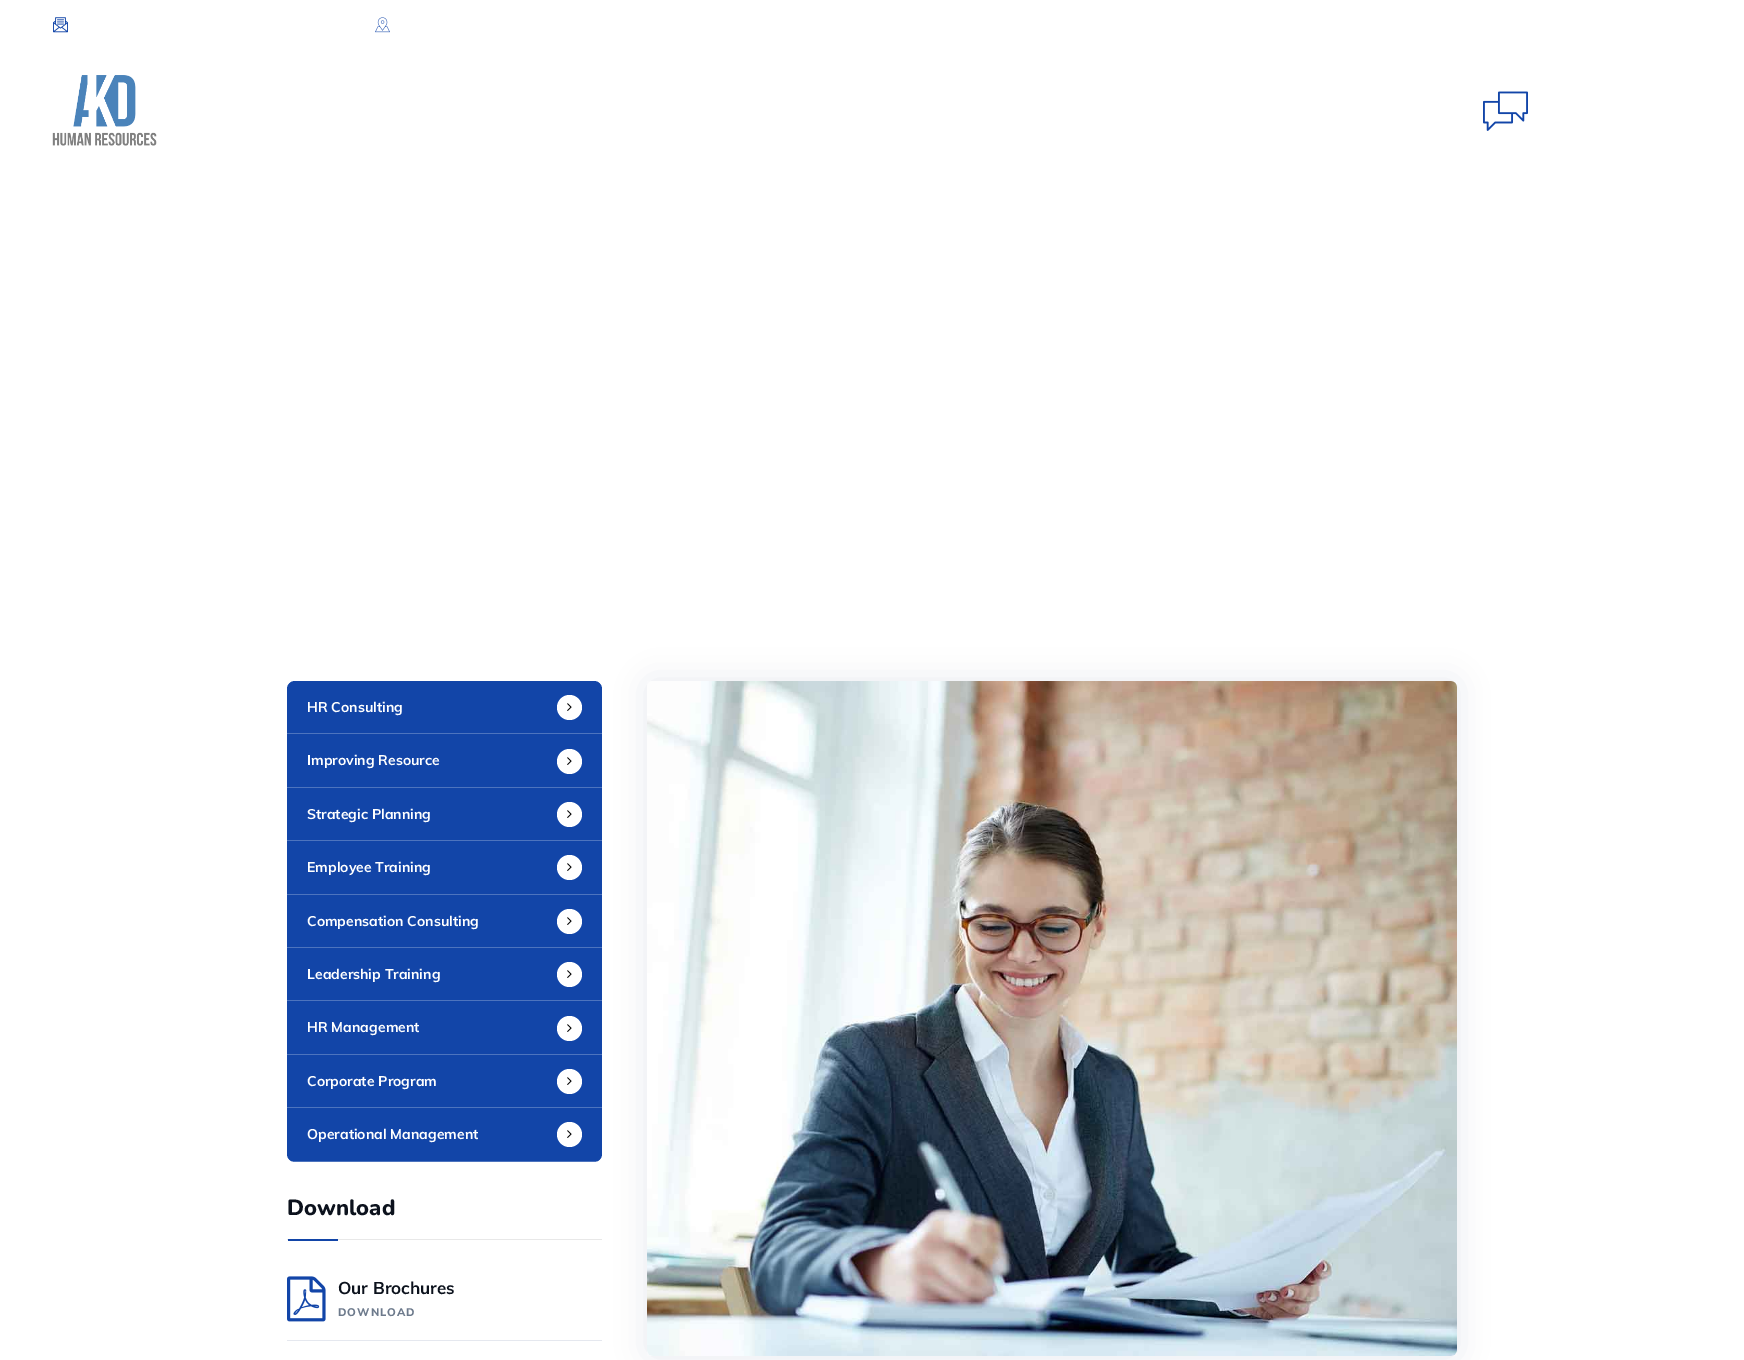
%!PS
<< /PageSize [1744 1360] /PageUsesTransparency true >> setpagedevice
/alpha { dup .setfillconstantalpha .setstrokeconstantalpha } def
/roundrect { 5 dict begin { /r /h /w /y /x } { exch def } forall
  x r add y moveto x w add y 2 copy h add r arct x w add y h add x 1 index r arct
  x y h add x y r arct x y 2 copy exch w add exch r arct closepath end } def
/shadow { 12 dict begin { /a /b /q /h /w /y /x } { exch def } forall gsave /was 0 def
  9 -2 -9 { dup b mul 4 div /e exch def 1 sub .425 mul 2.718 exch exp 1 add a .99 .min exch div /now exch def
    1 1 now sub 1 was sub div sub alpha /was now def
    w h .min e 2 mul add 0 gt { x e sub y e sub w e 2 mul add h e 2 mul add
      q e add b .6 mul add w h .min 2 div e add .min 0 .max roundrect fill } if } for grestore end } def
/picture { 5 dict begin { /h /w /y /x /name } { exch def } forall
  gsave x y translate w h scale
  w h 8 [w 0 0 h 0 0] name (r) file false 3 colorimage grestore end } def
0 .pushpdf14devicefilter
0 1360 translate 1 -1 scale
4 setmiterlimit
1 setgray
0 0 1744 1360 rectfill
(img1.rgb) 53 17 15 16 picture
(img2.rgb) 375 17 15 16 picture
(img3.rgb) 52 75 105 71 picture
(img4.rgb) 1483 91 45 40 picture
0.102 0.184 0.416 setrgbcolor
647 681 810 675 6 15 0.1 shadow
0.071 0.271 0.659 setrgbcolor
287 681 315 481 8 roundrect fill
0.302 0.455 0.745 setrgbcolor
287 733 315 1 rectfill
/Muli-Bold [14 0 0 -14 0 0] selectfont
1 setgray
307 712 moveto (HR Consulting) show
newpath 569.5 707.5 12.5 0 360 arc closepath fill
(img5.rgb) 567 703 5 8 picture
0.302 0.455 0.745 setrgbcolor
287 787 315 1 rectfill
1 setgray
307 765 moveto (Improving Resource) show
newpath 569.5 761.5 12.5 0 360 arc closepath fill
(img5.rgb) 567 757 5 8 picture
0.302 0.455 0.745 setrgbcolor
287 840 315 1 rectfill
1 setgray
307 819 moveto (Strategic Planning) show
newpath 569.5 814.5 12.5 0 360 arc closepath fill
(img5.rgb) 567 810 5 8 picture
0.302 0.455 0.745 setrgbcolor
287 894 315 1 rectfill
1 setgray
307 872 moveto (Employee Training) show
newpath 569.5 867.5 12.5 0 360 arc closepath fill
(img5.rgb) 567 863 5 8 picture
0.302 0.455 0.745 setrgbcolor
287 947 315 1 rectfill
1 setgray
307 926 moveto (Compensation Consulting) show
newpath 569.5 921.5 12.5 0 360 arc closepath fill
(img5.rgb) 567 917 5 8 picture
0.302 0.455 0.745 setrgbcolor
287 1000 315 1 rectfill
1 setgray
307 979 moveto (Leadership Training) show
newpath 569.5 974.5 12.5 0 360 arc closepath fill
(img5.rgb) 567 970 5 8 picture
0.302 0.455 0.745 setrgbcolor
287 1054 315 1 rectfill
1 setgray
307 1032 moveto (HR Management) show
newpath 569.5 1028.5 12.5 0 360 arc closepath fill
(img5.rgb) 567 1024 5 8 picture
0.302 0.455 0.745 setrgbcolor
287 1107 315 1 rectfill
1 setgray
307 1086 moveto (Corporate Program) show
newpath 569.5 1081.5 12.5 0 360 arc closepath fill
(img5.rgb) 567 1077 5 8 picture
gsave
287 681 315 481 8 roundrect clip newpath
0.25 alpha
287 1161 315 1 rectfill
grestore
307 1139 moveto (Operational Management) show
newpath 569.5 1134.5 12.5 0 360 arc closepath fill
(img5.rgb) 567 1130 5 8 picture
0.91 setgray
287 1239 315 1 rectfill
/Nunito-ExtraBold [22 0 0 -22 0 0] selectfont
0.047 0.071 0.114 setrgbcolor
287 1215 moveto (Download) show
0.071 0.271 0.659 setrgbcolor
288 1239 50 2 rectfill
0.898 0.91 0.937 setrgbcolor
287 1340 315 1 rectfill
(img6.rgb) 287 1276 39 46 picture
/Muli-Bold [17 0 0 -17 0 0] selectfont
0.047 0.071 0.114 setrgbcolor
338 1294 moveto (Our Brochures) show
/Muli-ExtraBold [11 0 0 -11 0 0] selectfont
0.427 0.478 0.549 setrgbcolor
338 1316 moveto 1 0 (DOWNLOAD) ashow
(img7.rgb) 647 681 810 675 picture
.poppdf14devicefilter showpage
